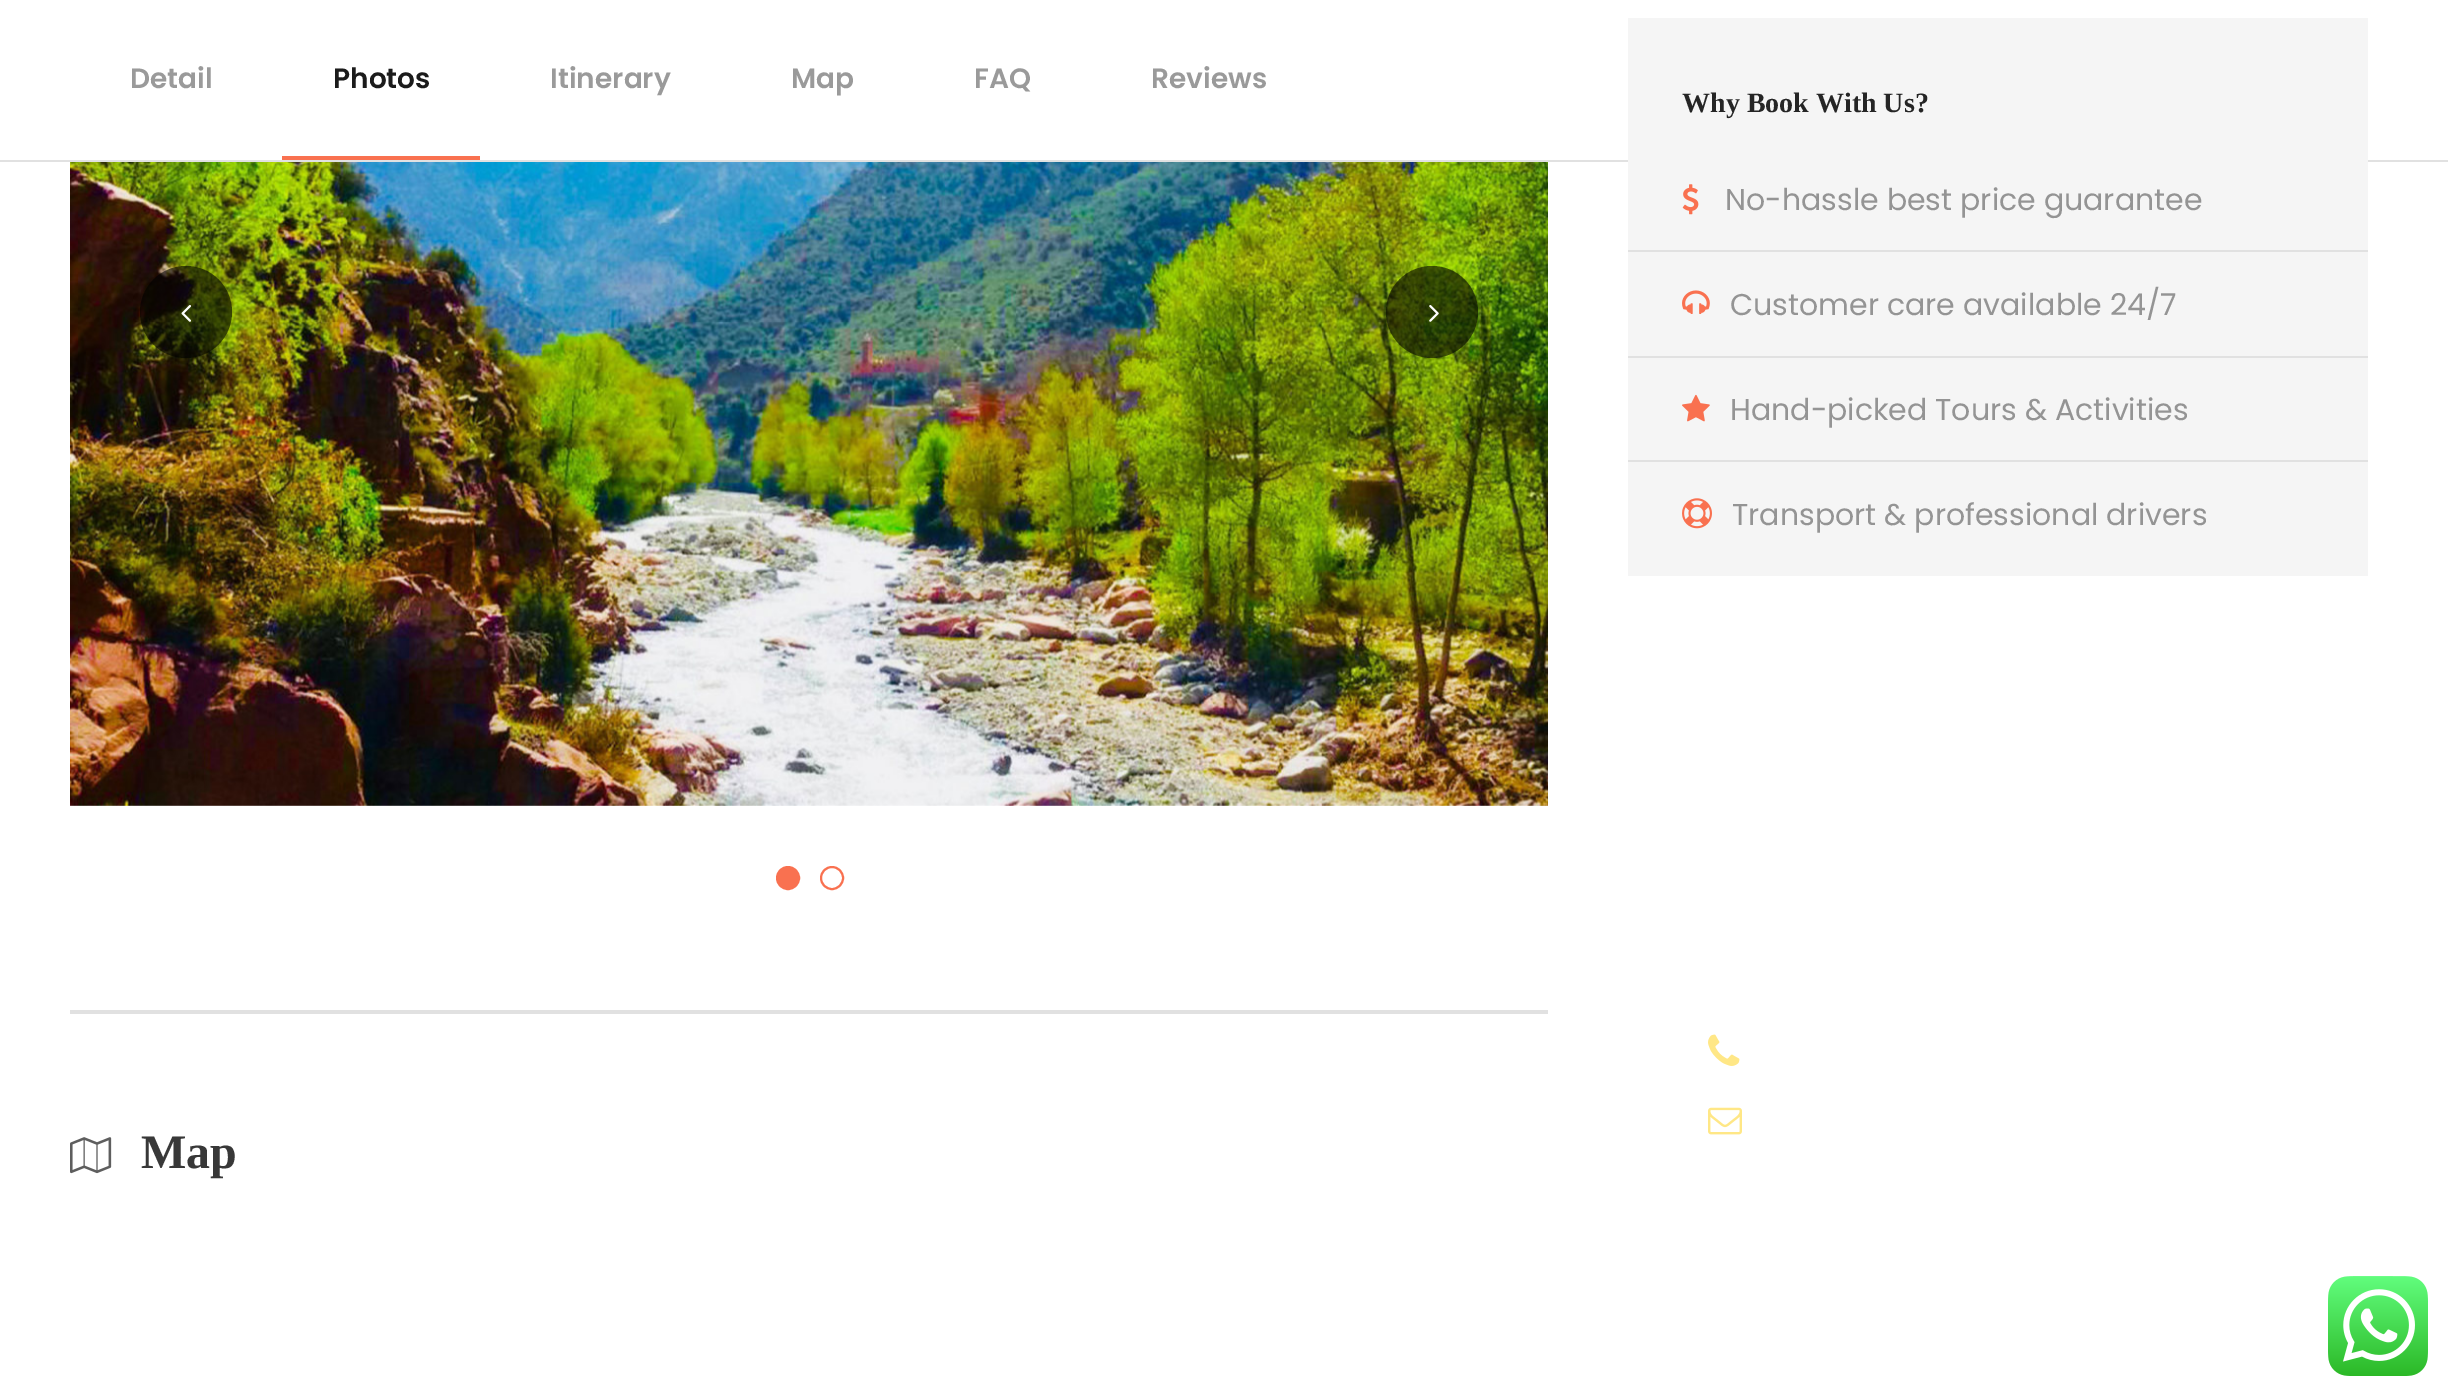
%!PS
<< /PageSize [2448 1395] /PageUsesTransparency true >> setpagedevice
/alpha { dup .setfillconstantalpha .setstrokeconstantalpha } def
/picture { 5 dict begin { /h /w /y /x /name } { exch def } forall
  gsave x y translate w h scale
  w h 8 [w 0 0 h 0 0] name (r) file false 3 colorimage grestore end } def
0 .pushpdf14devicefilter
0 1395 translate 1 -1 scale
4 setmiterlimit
1 setgray
0 0 2448 1395 rectfill
0.882 setgray
0 160 2448 2 rectfill
/Poppins-SemiBold [28 0 0 -28 0 0] selectfont
0.604 setgray
130 88 moveto (Detail) show
0.106 setgray
333 88 moveto (Photos) show
0.604 setgray
550 88 moveto (Itinerary) show
791 88 moveto (Map) show
974 88 moveto (FAQ) show
1151 88 moveto (Reviews) show
0.976 0.443 0.314 setrgbcolor
282 156 198 4 rectfill
(img1.rgb) 70 162 1478 644 picture
0.6 alpha
0 setgray
newpath 186 312 46 0 360 arc closepath fill
1 alpha
(img2.rgb) 181 305 10 17 picture
0.6 alpha
newpath 1432 312 46 0 360 arc closepath fill
1 alpha
(img3.rgb) 1429 305 10 17 picture
0.976 0.443 0.314 setrgbcolor
newpath 788 878 11 0 360 arc closepath gsave fill grestore
2 setlinewidth
stroke
newpath 832 878 11 0 360 arc closepath stroke
0.882 setgray
70 1010 1478 4 rectfill
(img4.rgb) 70 1137 42 37 picture
/LiberationSerif-Bold [48 0 0 -48 0 0] selectfont
0.22 setgray
141 1168 moveto (Map) show
0.961 setgray
1628 18 740 558 rectfill
/LiberationSerif-Bold [28 0 0 -28 0 0] selectfont
0.145 setgray
1682 112 moveto (Why Book With Us?) show
(img5.rgb) 1682 184 17 31 picture
/Poppins-Regular [30 0 0 -30 0 0] selectfont
0.58 setgray
1725 210 moveto (No-hassle best price guarantee) show
0.882 setgray
1628 250 740 2 rectfill
(img6.rgb) 1682 290 28 24 picture
0.58 setgray
1730 315 moveto (Customer care available 24/7) show
0.882 setgray
1628 356 740 2 rectfill
(img7.rgb) 1682 394 28 28 picture
0.58 setgray
1730 420 moveto (Hand-picked Tours & Activities) show
0.882 setgray
1628 460 740 2 rectfill
(img8.rgb) 1682 498 30 31 picture
0.58 setgray
1732 525 moveto (Transport & professional drivers) show
(img9.rgb) 1708 1034 32 32 picture
(img10.rgb) 1708 1107 34 28 picture
(img11.rgb) 2328 1276 100 100 picture
.poppdf14devicefilter showpage
